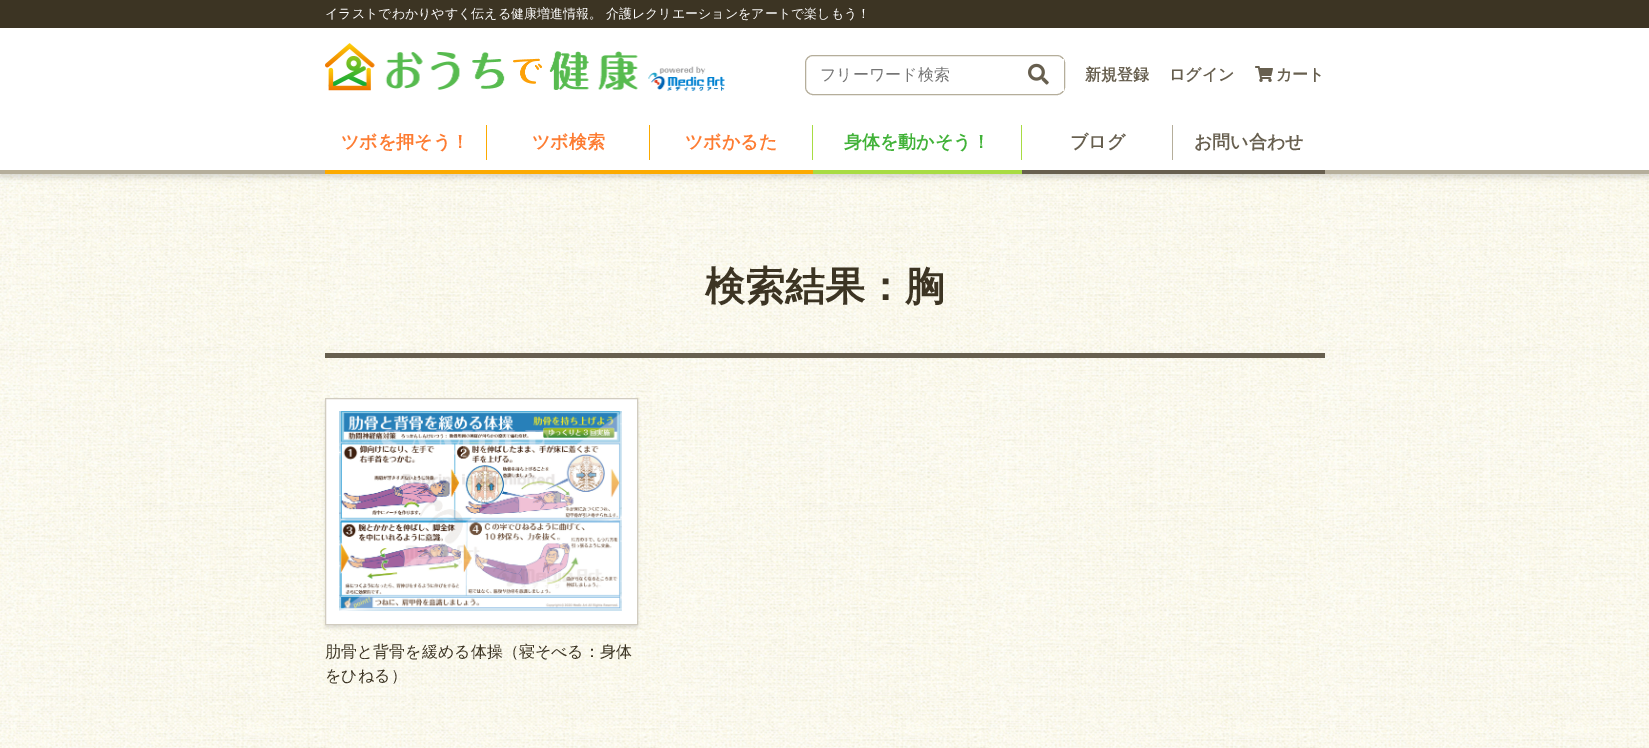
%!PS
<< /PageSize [1649 748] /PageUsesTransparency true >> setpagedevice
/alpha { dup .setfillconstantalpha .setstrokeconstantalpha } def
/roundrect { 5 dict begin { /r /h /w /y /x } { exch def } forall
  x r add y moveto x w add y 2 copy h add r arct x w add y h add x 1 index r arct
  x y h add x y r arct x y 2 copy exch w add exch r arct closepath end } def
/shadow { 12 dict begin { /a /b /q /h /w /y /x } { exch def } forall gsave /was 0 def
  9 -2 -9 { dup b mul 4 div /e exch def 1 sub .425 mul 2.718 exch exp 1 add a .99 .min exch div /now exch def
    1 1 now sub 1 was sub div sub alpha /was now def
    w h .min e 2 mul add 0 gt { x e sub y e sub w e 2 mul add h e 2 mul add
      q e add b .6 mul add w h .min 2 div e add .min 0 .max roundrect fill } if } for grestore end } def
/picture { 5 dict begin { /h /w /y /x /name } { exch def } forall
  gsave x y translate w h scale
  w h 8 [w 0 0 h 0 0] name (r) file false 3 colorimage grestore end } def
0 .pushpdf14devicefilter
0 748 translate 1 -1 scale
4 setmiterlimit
1 setgray
0 0 1649 748 rectfill
(img1.rgb) 0 174 1649 574 picture
0 setgray
0 3 1649 174 0 3 0.15 shadow
1 setgray
0 28 1649 142 rectfill
0.71 0.682 0.608 setrgbcolor
0 170 1649 4 rectfill
0.235 0.204 0.137 setrgbcolor
0 0 1649 28 rectfill
/WenQuanYiZenHei-Medium [13 0 0 -13 0 0] selectfont
1 setgray
325 18 moveto (イラストでわかりやすく伝える健康増進情報。 介護レクリエーションをアートで楽しもう！) show
(img2.rgb) 325 43 400 48 picture
0.71 0.682 0.608 setrgbcolor
805.5 55.5 259 39 7.5 roundrect stroke
gsave
806 56 258 38 7 roundrect clip newpath
1 setgray
818 59 246 32 rectfill
grestore
/WenQuanYiZenHei-Medium [16 0 0 -16 0 0] selectfont
0.459 setgray
820 80 moveto (フリーワード検索) show
(img3.rgb) 1028 63 21 22 picture
/WenQuanYiZenHei-Bold [16 0 0 -16 0 0] selectfont
0.404 0.373 0.31 setrgbcolor
1085 80 moveto (新規登録) show
1169 80 moveto (ログイン) show
(img4.rgb) 1255 66 18 16 picture
1276 80 moveto (カート) show
0.988 0.667 0 setrgbcolor
325 170 488 4 rectfill
486 125 1 35 rectfill
/WenQuanYiZenHei-Bold [18 0 0 -18 0 0] selectfont
0.992 0.486 0.196 setrgbcolor
341 148 moveto (ツボを押そう！) show
0.988 0.667 0 setrgbcolor
649 125 1 35 rectfill
0.992 0.486 0.196 setrgbcolor
532 148 moveto (ツボ検索) show
0.659 0.863 0.263 setrgbcolor
812 125 1 35 rectfill
0.992 0.486 0.196 setrgbcolor
685 148 moveto (ツボかるた) show
0.659 0.863 0.263 setrgbcolor
813 170 209 4 rectfill
1021 125 1 35 rectfill
0.255 0.698 0.22 setrgbcolor
844 148 moveto (身体を動かそう！) show
0.404 0.373 0.31 setrgbcolor
1022 170 303 4 rectfill
0.71 0.682 0.608 setrgbcolor
1172 125 1 35 rectfill
0.404 0.373 0.31 setrgbcolor
1070 148 moveto (ブログ) show
1194 148 moveto (お問い合わせ) show
325 353 1000 5 rectfill
/WenQuanYiZenHei-Bold [40 0 0 -40 0 0] selectfont
0.235 0.204 0.137 setrgbcolor
705 300 moveto (検索結果：胸) show
0 setgray
325 401 313 227 0 1.5 0.1 shadow
1 setgray
newpath 325.5 398.5 moveto 637.5 398.5 lineto 637.5 624.5 lineto 325.5 624.5 lineto closepath gsave fill grestore
0.82 0.8 0.753 setrgbcolor
stroke
(img5.rgb) 339 411 283 200 picture
/WenQuanYiZenHei-Medium [16 0 0 -16 0 0] selectfont
0.235 0.204 0.137 setrgbcolor
325 657 moveto (肋骨と背骨を緩める体操（寝そべる：身体) show
325 681 moveto (をひねる）) show
.poppdf14devicefilter showpage
